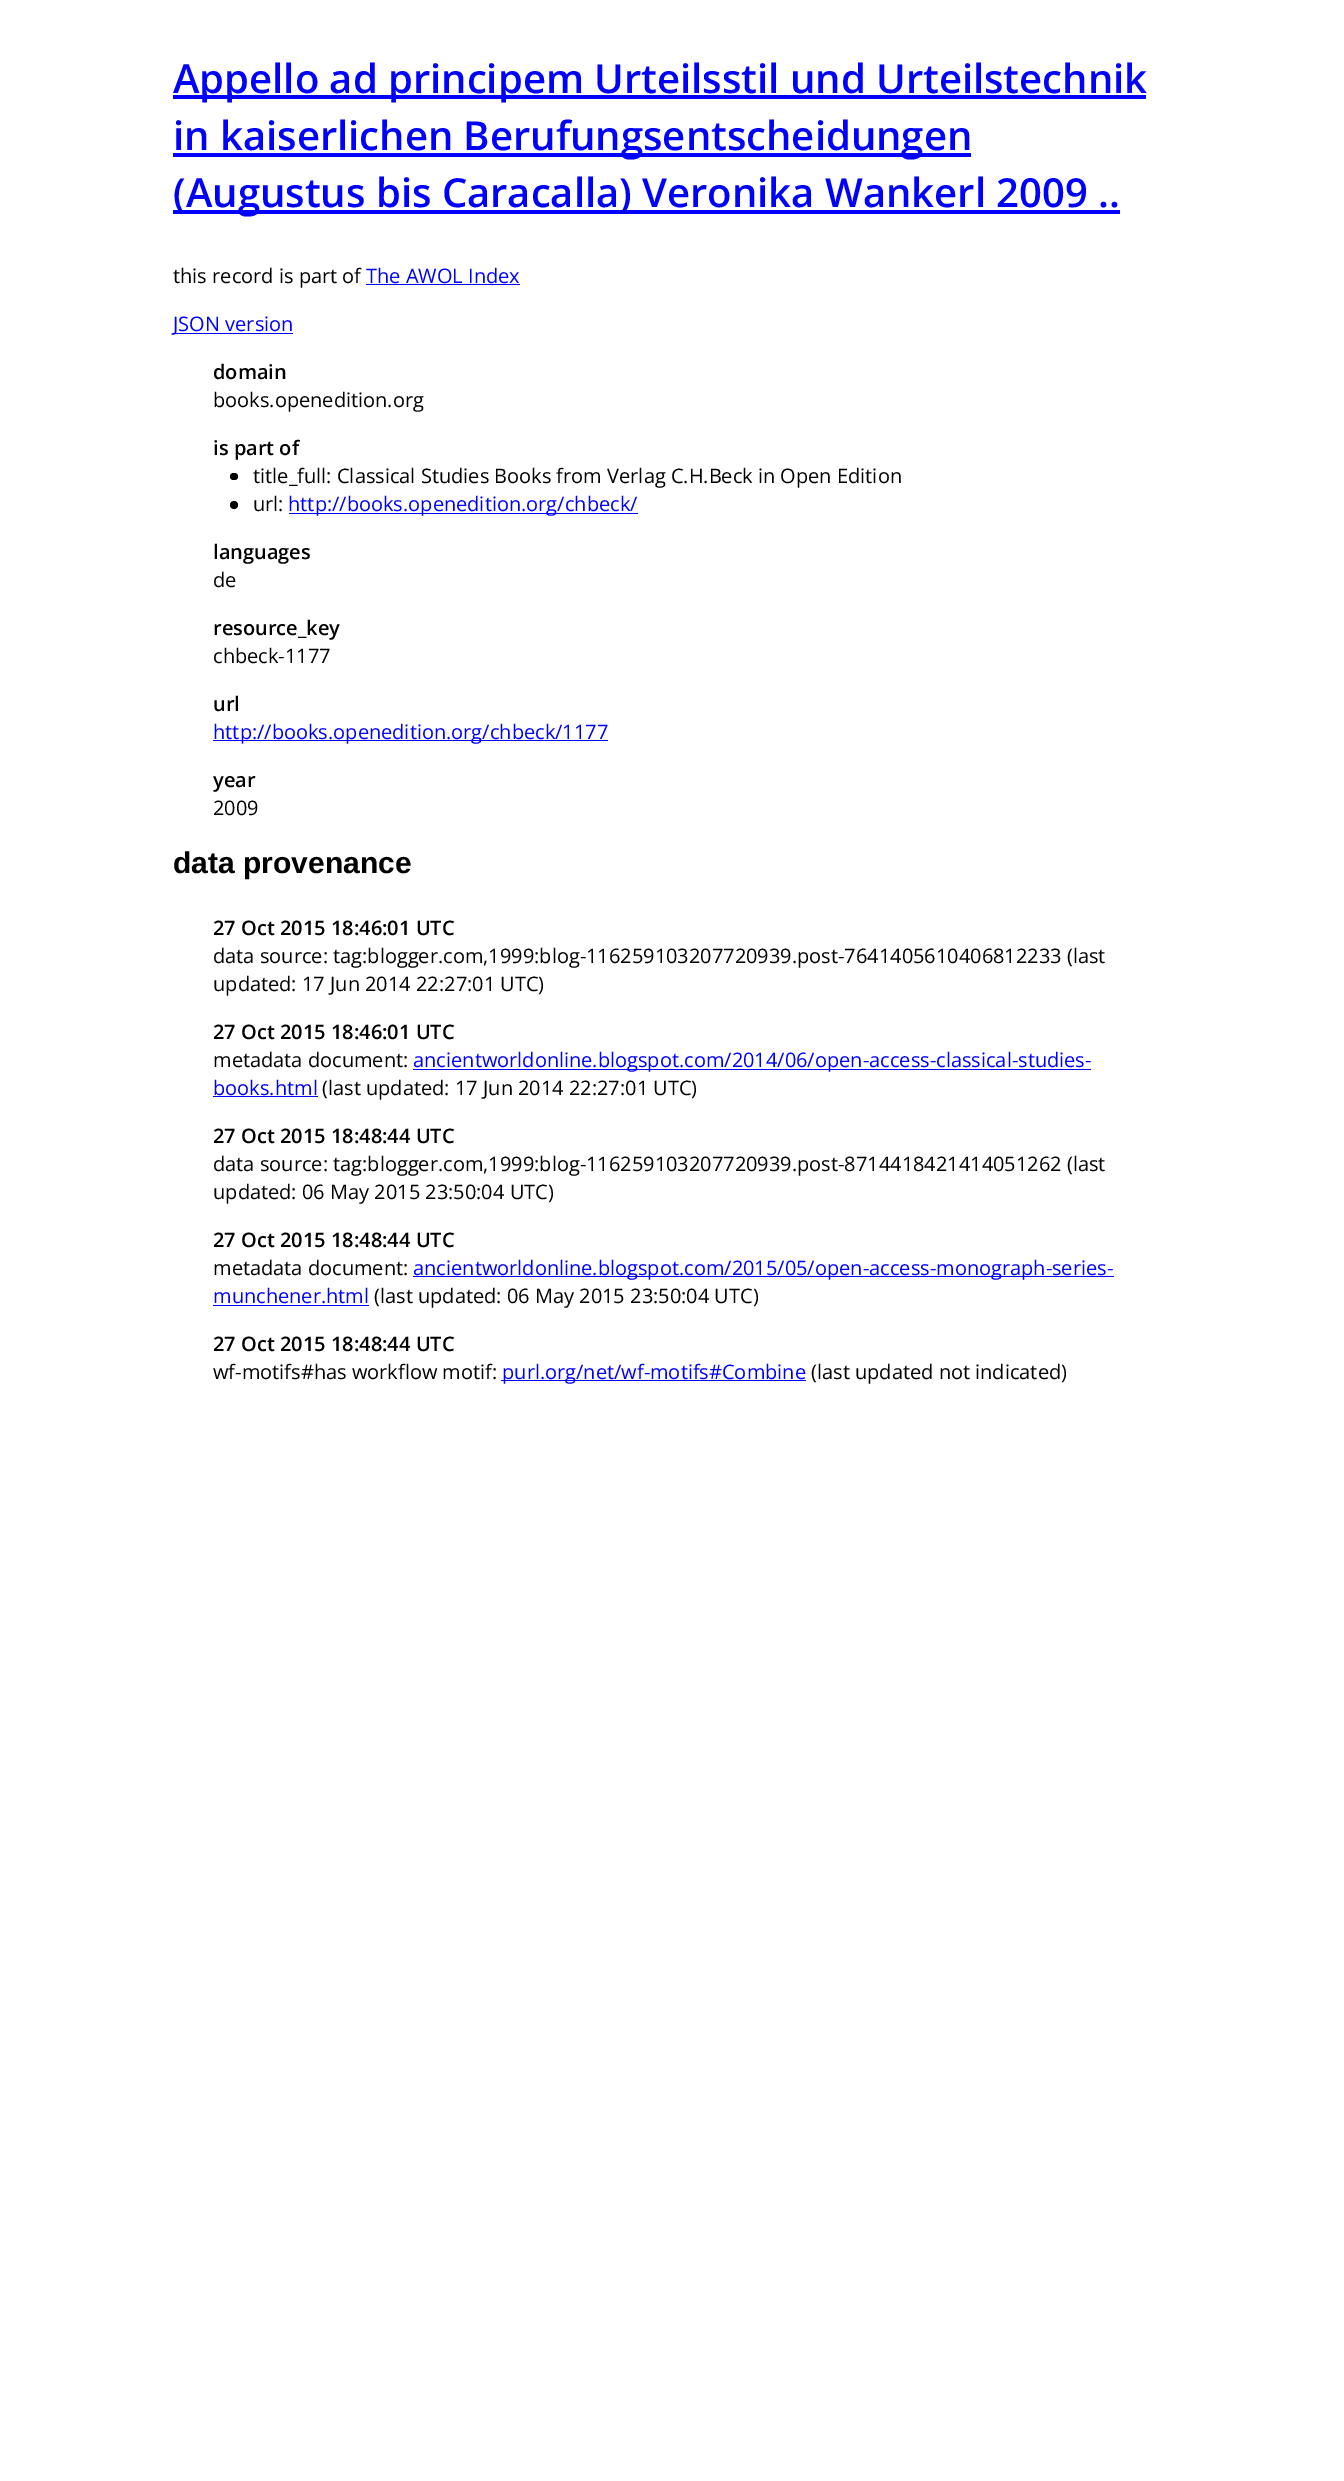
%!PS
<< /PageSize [1344 2481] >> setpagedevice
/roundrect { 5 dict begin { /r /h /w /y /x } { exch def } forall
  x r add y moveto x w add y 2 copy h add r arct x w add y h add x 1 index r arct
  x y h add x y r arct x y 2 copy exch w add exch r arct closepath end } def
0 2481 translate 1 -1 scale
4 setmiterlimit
1 setgray
0 0 1344 2481 rectfill
0 0 1 setrgbcolor
173 95 973 4 rectfill
/OpenSans-SemiBold [40 0 0 -40 0 0] selectfont
173 93 moveto (Appello ad principem Urteilsstil und Urteilstechnik) show
173 153 798 4 rectfill
173 150 moveto (in kaiserlichen Berufungsentscheidungen) show
173 210 947 4 rectfill
173 207 moveto (\(Augustus bis Caracalla\) Veronika Wankerl 2009 ..) show
/OpenSans-Regular [20 0 0 -20 0 0] selectfont
0 setgray
173 283 moveto (this record is part of) show
0 0 1 setrgbcolor
366 283 moveto (The AWOL Index) show
366 284 154 1 rectfill
173 333 120 1 rectfill
173 331 moveto (JSON version) show
/OpenSans-SemiBold [20 0 0 -20 0 0] selectfont
0 setgray
213 379 moveto (domain) show
/OpenSans-Regular [20 0 0 -20 0 0] selectfont
213 407 moveto (books.openedition.org) show
/OpenSans-SemiBold [20 0 0 -20 0 0] selectfont
213 455 moveto (is part of) show
230 473 8 7 3.5 roundrect fill
/OpenSans-Regular [20 0 0 -20 0 0] selectfont
253 483 moveto (title_full: Classical Studies Books from Verlag C.H.Beck in Open Edition) show
newpath 234 505 4 0 360 arc closepath fill
253 511 moveto (url:) show
0 0 1 setrgbcolor
289 513 349 1 rectfill
288 511 moveto (http://books.openedition.org/chbeck/) show
/OpenSans-SemiBold [20 0 0 -20 0 0] selectfont
0 setgray
213 559 moveto (languages) show
/OpenSans-Regular [20 0 0 -20 0 0] selectfont
213 587 moveto (de) show
/OpenSans-SemiBold [20 0 0 -20 0 0] selectfont
213 635 moveto (resource_key) show
/OpenSans-Regular [20 0 0 -20 0 0] selectfont
213 663 moveto (chbeck-1177) show
/OpenSans-SemiBold [20 0 0 -20 0 0] selectfont
213 711 moveto (url) show
0 0 1 setrgbcolor
213 740 395 1 rectfill
/OpenSans-Regular [20 0 0 -20 0 0] selectfont
213 739 moveto (http://books.openedition.org/chbeck/1177) show
/OpenSans-SemiBold [20 0 0 -20 0 0] selectfont
0 setgray
213 787 moveto (year) show
/OpenSans-Regular [20 0 0 -20 0 0] selectfont
213 815 moveto (2009) show
/LiberationSans-Bold [30 0 0 -30 0 0] selectfont
173 873 moveto (data provenance) show
/OpenSans-SemiBold [20 0 0 -20 0 0] selectfont
213 935 moveto (27 Oct 2015 18:46:01 UTC) show
/OpenSans-Regular [20 0 0 -20 0 0] selectfont
213 963 moveto (data source: tag:blogger.com,1999:blog-116259103207720939.post-7641405610406812233 \(last) show
213 991 moveto (updated: 17 Jun 2014 22:27:01 UTC\)) show
/OpenSans-SemiBold [20 0 0 -20 0 0] selectfont
213 1039 moveto (27 Oct 2015 18:46:01 UTC) show
/OpenSans-Regular [20 0 0 -20 0 0] selectfont
213 1067 moveto (metadata document:) show
0 0 1 setrgbcolor
413 1069 678 1 rectfill
413 1067 moveto (ancientworldonline.blogspot.com/2014/06/open-access-classical-studies-) show
213 1095 moveto (books.html) show
213 1096 105 1 rectfill
0 setgray
322 1095 moveto (\(last updated: 17 Jun 2014 22:27:01 UTC\)) show
/OpenSans-SemiBold [20 0 0 -20 0 0] selectfont
213 1143 moveto (27 Oct 2015 18:48:44 UTC) show
/OpenSans-Regular [20 0 0 -20 0 0] selectfont
213 1171 moveto (data source: tag:blogger.com,1999:blog-116259103207720939.post-8714418421414051262 \(last) show
213 1199 moveto (updated: 06 May 2015 23:50:04 UTC\)) show
/OpenSans-SemiBold [20 0 0 -20 0 0] selectfont
213 1247 moveto (27 Oct 2015 18:48:44 UTC) show
/OpenSans-Regular [20 0 0 -20 0 0] selectfont
213 1275 moveto (metadata document:) show
0 0 1 setrgbcolor
413 1276 701 1 rectfill
413 1275 moveto (ancientworldonline.blogspot.com/2015/05/open-access-monograph-series-) show
213 1303 moveto (munchener.html) show
213 1305 156 1 rectfill
0 setgray
374 1303 moveto (\(last updated: 06 May 2015 23:50:04 UTC\)) show
/OpenSans-SemiBold [20 0 0 -20 0 0] selectfont
213 1351 moveto (27 Oct 2015 18:48:44 UTC) show
/OpenSans-Regular [20 0 0 -20 0 0] selectfont
213 1379 moveto (wf-motifs#has workflow motif:) show
0 0 1 setrgbcolor
501 1380 305 1 rectfill
502 1379 moveto (purl.org/net/wf-motifs#Combine) show
0 setgray
811 1379 moveto (\(last updated not indicated\)) show
showpage
